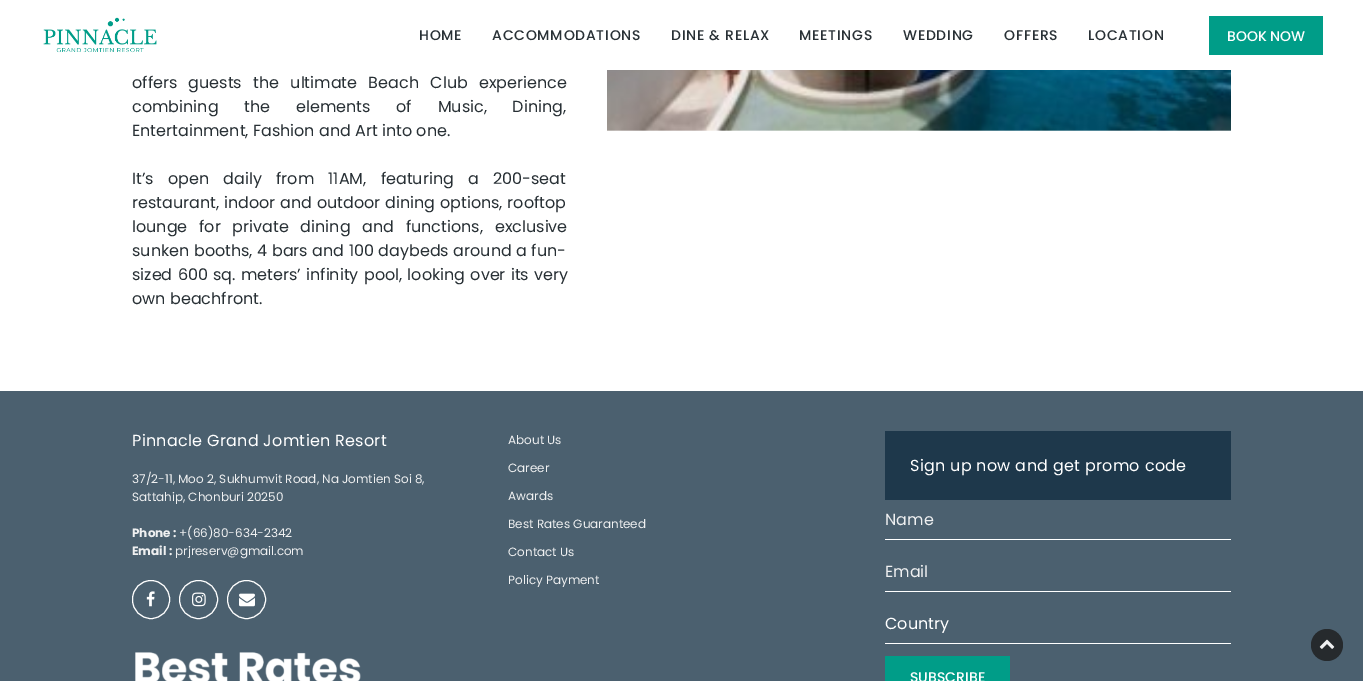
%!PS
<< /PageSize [1363 681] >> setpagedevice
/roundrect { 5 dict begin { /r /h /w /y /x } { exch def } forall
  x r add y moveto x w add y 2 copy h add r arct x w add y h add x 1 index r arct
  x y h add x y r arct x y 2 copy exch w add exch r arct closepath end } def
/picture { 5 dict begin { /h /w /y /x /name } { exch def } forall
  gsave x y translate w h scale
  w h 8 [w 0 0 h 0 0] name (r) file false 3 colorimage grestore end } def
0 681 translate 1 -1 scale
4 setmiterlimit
1 setgray
0 0 1363 681 rectfill
(img1.rgb) 43 17 114 36 picture
/Poppins-Medium [14 0 0 -14 0 0] selectfont
0.157 0.188 0.208 setrgbcolor
419 40 moveto 0.75 0 (HOME) ashow
492 40 moveto 0.75 0 (ACCOMMODATIONS) ashow
671 40 moveto 0.75 0 (DINE & RELAX) ashow
799 40 moveto 0.75 0 (MEETINGS) ashow
903 40 moveto 0.75 0 (WEDDING) ashow
1004 40 moveto 0.75 0 (OFFERS) ashow
1088 40 moveto 0.75 0 (LOCATION) ashow
0 0.616 0.533 setrgbcolor
1209 16 114 39 rectfill
1 setgray
1227 41 moveto (BOOK NOW) show
/Poppins-Regular [16 0 0 -16 0 0] selectfont
0.157 0.188 0.208 setrgbcolor
132 88 moveto 7 0 32 (offers guests the ultimate Beach Club experience) widthshow
132 112 moveto 21.5 0 32 (combining the elements of Music, Dining,) widthshow
132 136 moveto (Entertainment, Fashion and Art into one.) show
132 184 moveto 10 0 32 (It’s open daily from 11AM, featuring a 200-seat) widthshow
132 208 moveto 0.5 0 32 (restaurant, indoor and outdoor dining options, rooftop) widthshow
132 232 moveto 7.5 0 32 (lounge for private dining and functions, exclusive) widthshow
132 256 moveto 0.25 0 32 (sunken booths, 4 bars and 100 daybeds around a fun-) widthshow
132 280 moveto 1 0 32 (sized 600 sq. meters’ infinity pool, looking over its very) widthshow
132 304 moveto (own beachfront.) show
(img2.rgb) 607 70 624 61 picture
0.294 0.376 0.435 setrgbcolor
0 391 1363 290 rectfill
1 setgray
132 446 moveto 0.3 0 (Pinnacle Grand Jomtien Resort) ashow
/Poppins-Regular [12 0 0 -12 0 0] selectfont
0.937 0.941 0.945 setrgbcolor
132 483 moveto (37/2-11, Moo 2, Sukhumvit Road, Na Jomtien Soi 8,) show
132 501 moveto (Sattahip, Chonburi 20250) show
/Poppins-Bold [12 0 0 -12 0 0] selectfont
132 537 moveto (Phone :) show
/Poppins-Regular [12 0 0 -12 0 0] selectfont
179 537 moveto (+\(66\)80-634-2342) show
/Poppins-Bold [12 0 0 -12 0 0] selectfont
132 555 moveto (Email :) show
/Poppins-Regular [12 0 0 -12 0 0] selectfont
175 555 moveto (prjreserv@gmail.com) show
1 setgray
132.5 580.5 37 38 18.5 roundrect stroke
(img3.rgb) 146 591 9 16 picture
newpath 198.5 599.5 19 0 360 arc closepath stroke
(img4.rgb) 192 592 14 15 picture
newpath 246.5 599.5 19 0 360 arc closepath stroke
(img5.rgb) 239 593 16 14 picture
(img6.rgb) 135 652 226 29 picture
0.937 0.941 0.945 setrgbcolor
508 444 moveto (About Us) show
508 472 moveto (Career) show
508 500 moveto (Awards) show
508 528 moveto (Best Rates Guaranteed) show
508 556 moveto (Contact Us) show
508 584 moveto (Policy Payment) show
0.118 0.22 0.294 setrgbcolor
885 431 346 69 rectfill
/Poppins-Regular [16 0 0 -16 0 0] selectfont
1 setgray
910 471 moveto 0.3 0 (Sign up now and get promo code) ashow
885 539 346 1 rectfill
0.937 0.941 0.945 setrgbcolor
885 525 moveto (Name) show
1 setgray
885 591 346 1 rectfill
0.937 0.941 0.945 setrgbcolor
885 577 moveto (Email) show
1 setgray
885 643 346 1 rectfill
885 629 moveto (Country) show
0 0.616 0.533 setrgbcolor
885 656 125 25 rectfill
/Poppins-Medium [14 0 0 -14 0 0] selectfont
1 setgray
910 682 moveto (SUBSCRIBE) show
0.149 0.165 0.176 setrgbcolor
newpath 1327 645 16 0 360 arc closepath fill
(img7.rgb) 1319 639 16 10 picture
showpage
